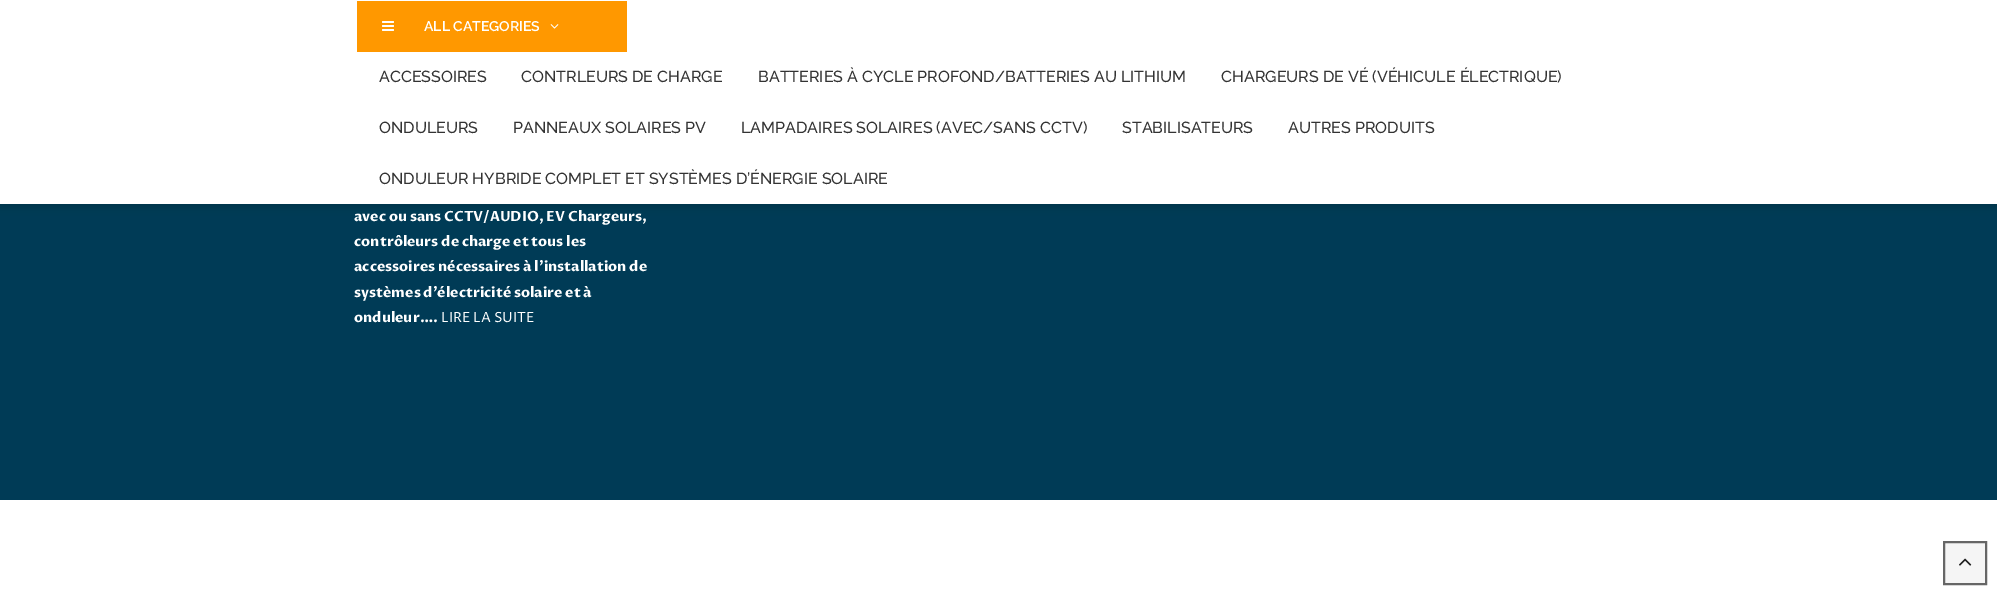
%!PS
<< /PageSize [1997 595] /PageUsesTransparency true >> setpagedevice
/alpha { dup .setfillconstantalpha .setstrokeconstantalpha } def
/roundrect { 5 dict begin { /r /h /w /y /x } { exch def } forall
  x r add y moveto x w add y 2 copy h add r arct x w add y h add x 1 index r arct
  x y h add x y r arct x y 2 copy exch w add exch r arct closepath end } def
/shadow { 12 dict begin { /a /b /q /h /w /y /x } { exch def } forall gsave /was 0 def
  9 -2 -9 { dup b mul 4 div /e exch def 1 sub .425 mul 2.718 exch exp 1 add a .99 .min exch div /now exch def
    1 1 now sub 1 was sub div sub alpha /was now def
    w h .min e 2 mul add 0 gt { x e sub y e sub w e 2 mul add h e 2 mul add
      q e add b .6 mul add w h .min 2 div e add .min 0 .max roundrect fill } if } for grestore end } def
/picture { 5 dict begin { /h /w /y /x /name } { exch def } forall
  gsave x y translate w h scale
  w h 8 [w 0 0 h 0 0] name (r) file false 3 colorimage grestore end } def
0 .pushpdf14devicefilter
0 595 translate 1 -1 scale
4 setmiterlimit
1 setgray
0 0 1997 595 rectfill
0 0.231 0.337 setrgbcolor
0 204 1997 296 rectfill
0 setgray
0 1 1997 204 0 5 0.2 shadow
1 setgray
0 0 1997 204 rectfill
1 0.596 0 setrgbcolor
357 1 270 51 rectfill
(img1.rgb) 382 21 12 10 picture
/Raleway-SemiBold [14 0 0 -14 0 0] selectfont
1 setgray
424 31 moveto (ALL CATEGORIES) show
(img2.rgb) 550 24 9 5 picture
/Raleway-Medium [16 0 0 -16 0 0] selectfont
0.2 setgray
379 82 moveto (ACCESSOIRES) show
521 82 moveto (CONTRLEURS DE CHARGE) show
758 82 moveto (BATTERIES À CYCLE PROFOND/BATTERIES AU LITHIUM) show
1221 82 moveto (CHARGEURS DE VÉ \(VÉHICULE ÉLECTRIQUE\)) show
379 133 moveto (ONDULEURS) show
513 133 moveto (PANNEAUX SOLAIRES PV) show
741 133 moveto (LAMPADAIRES SOLAIRES \(AVEC/SANS CCTV\)) show
1122 133 moveto (STABILISATEURS) show
1288 133 moveto (AUTRES PRODUITS) show
379 184 moveto (ONDULEUR HYBRIDE COMPLET ET SYSTÈMES D’ÉNERGIE SOLAIRE) show
/ProzaLibre-Bold [14 0 0 -14 0 0] selectfont
1 setgray
354 221 moveto (avec ou sans CCTV/AUDIO, EV Chargeurs,) show
354 246 moveto (contrôleurs de charge et tous les) show
354 271 moveto (accessoires nécessaires à l’installation de) show
354 297 moveto (systèmes d’électricité solaire et à) show
354 322 moveto (onduleur….) show
/ProzaLibre-Regular [14 0 0 -14 0 0] selectfont
441 322 moveto (LIRE LA SUITE) show
0.961 setgray
newpath 1944 542 moveto 1986 542 lineto 1986 584 lineto 1944 584 lineto closepath gsave fill grestore
0.4 setgray
2 setlinewidth
stroke
(img3.rgb) 1959 558 13 8 picture
.poppdf14devicefilter showpage
